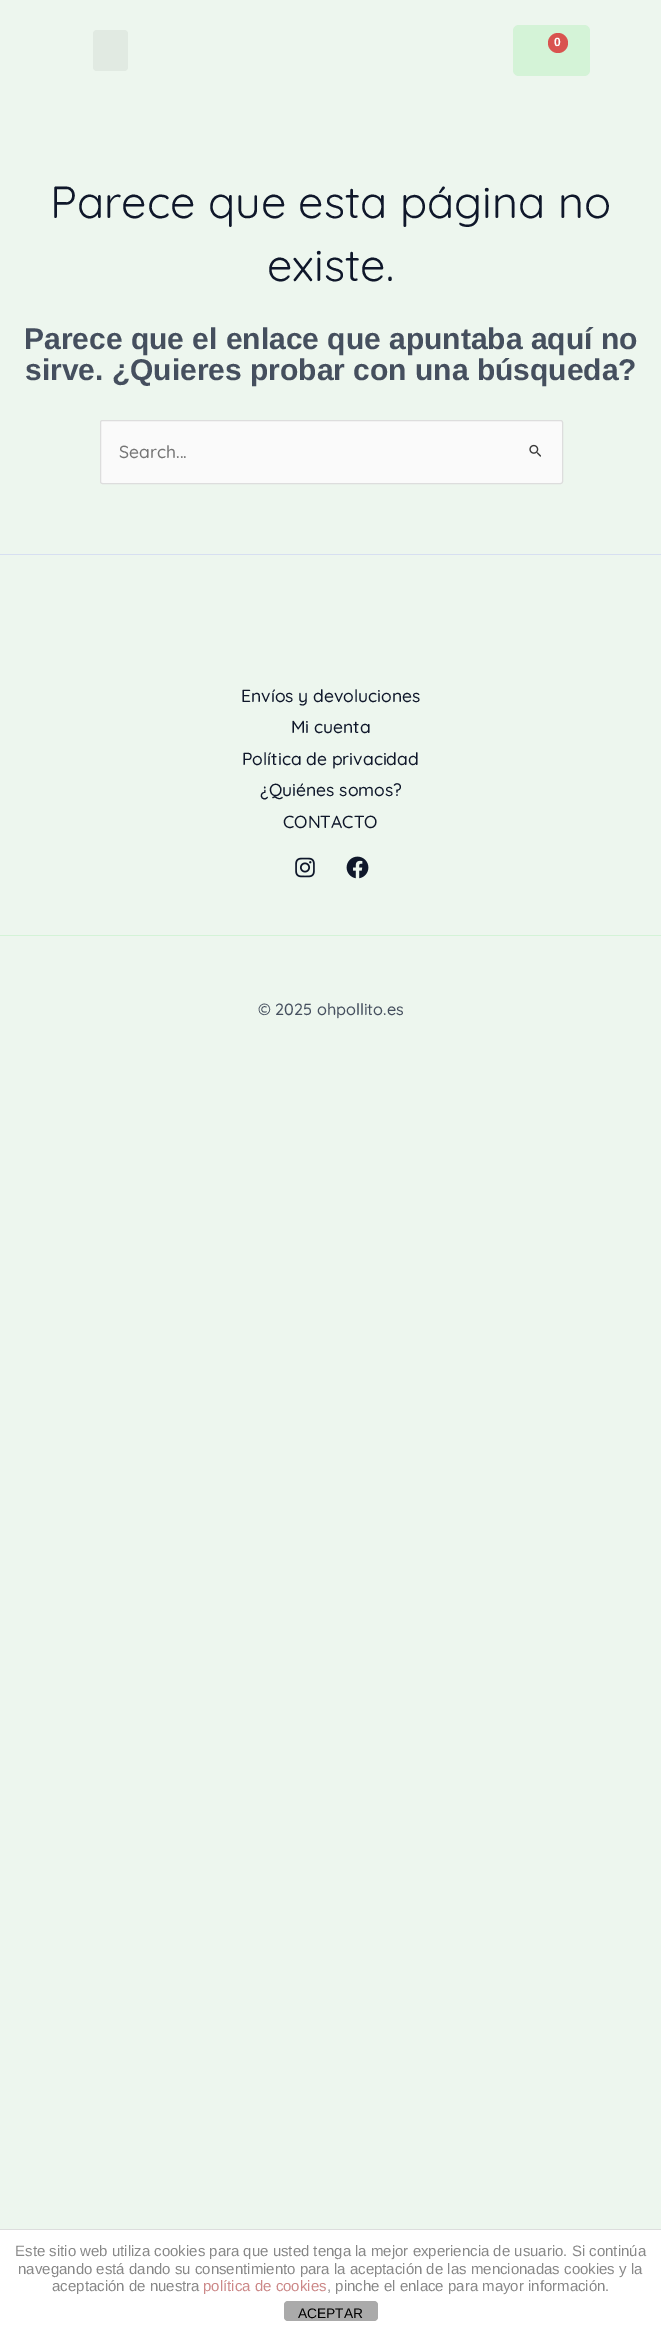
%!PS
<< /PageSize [661 2328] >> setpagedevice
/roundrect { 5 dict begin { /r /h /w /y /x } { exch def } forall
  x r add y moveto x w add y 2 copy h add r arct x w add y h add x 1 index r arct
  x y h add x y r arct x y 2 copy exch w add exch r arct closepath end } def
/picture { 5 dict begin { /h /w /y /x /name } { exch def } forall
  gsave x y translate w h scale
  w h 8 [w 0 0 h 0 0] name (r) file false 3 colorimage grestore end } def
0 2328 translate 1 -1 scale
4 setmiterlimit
0.929 0.965 0.933 setrgbcolor
0 0 661 2328 rectfill
0.882 0.918 0.886 setrgbcolor
93 30 35 41 4 roundrect fill
0.831 0.953 0.843 setrgbcolor
513 25 77 51 6 roundrect fill
0.851 0.325 0.31 setrgbcolor
newpath 558 43 10 0 360 arc closepath fill
/LiberationSans-Bold [12 0 0 -12 0 0] selectfont
1 setgray
554 46 moveto (0) show
/Quicksand-Regular [45 0 0 -45 0 0] selectfont
0.059 0.09 0.165 setrgbcolor
50 218 moveto (Parece que esta página no) show
267 281 moveto (existe.) show
/LiberationSans-Bold [30 0 0 -30 0 0] selectfont
0.271 0.31 0.369 setrgbcolor
24 349 moveto (Parece que el enlace que apuntaba aquí no) show
25 380 moveto (sirve. ¿Quieres probar con una búsqueda?) show
0.98 setgray
100.5 420.5 462 63 2 roundrect gsave fill grestore
0.867 setgray
stroke
/Quicksand-Medium [17.5 0 0 -17.5 0 0] selectfont
0.459 setgray
119 458 moveto (Search...) show
(img1.rgb) 529 444 12 13 picture
0.843 0.875 0.945 setrgbcolor
0 554 661 1 rectfill
0.059 0.09 0.165 setrgbcolor
241 702 moveto (Envíos y devoluciones) show
291 733 moveto (Mi cuenta) show
242 765 moveto (Política de privacidad) show
260 796 moveto (¿Quiénes somos?) show
283 828 moveto (CONTACTO) show
(img2.rgb) 295 857 20 21 picture
(img3.rgb) 346 856 23 23 picture
0.831 0.953 0.843 setrgbcolor
0 935 661 1 rectfill
/Quicksand-Medium [16.25 0 0 -16.25 0 0] selectfont
0.271 0.31 0.369 setrgbcolor
258 1015 moveto (© 2025 ohpollito.es) show
1 setgray
0 2230 661 98 rectfill
0.867 setgray
0 2229 661 1 rectfill
/LiberationSans-Regular [15 0 0 -15 0 0] selectfont
0.533 setgray
15 2256 moveto (Este sitio web utiliza cookies para que usted tenga la mejor experiencia de usuario. Si continúa) show
18 2274 moveto (navegando está dando su consentimiento para la aceptación de las mencionadas cookies y la) show
52 2291 moveto (aceptación de nuestra) show
0.8 0.533 0.533 setrgbcolor
203 2291 moveto (política de cookies) show
0.533 setgray
327 2291 moveto (, pinche el enlace para mayor información.) show
0.667 setgray
284 2301 94 20 4 roundrect fill
/LiberationSans-Regular [13.75 0 0 -13.75 0 0] selectfont
0 setgray
298 2318 moveto (ACEPTAR) show
showpage
